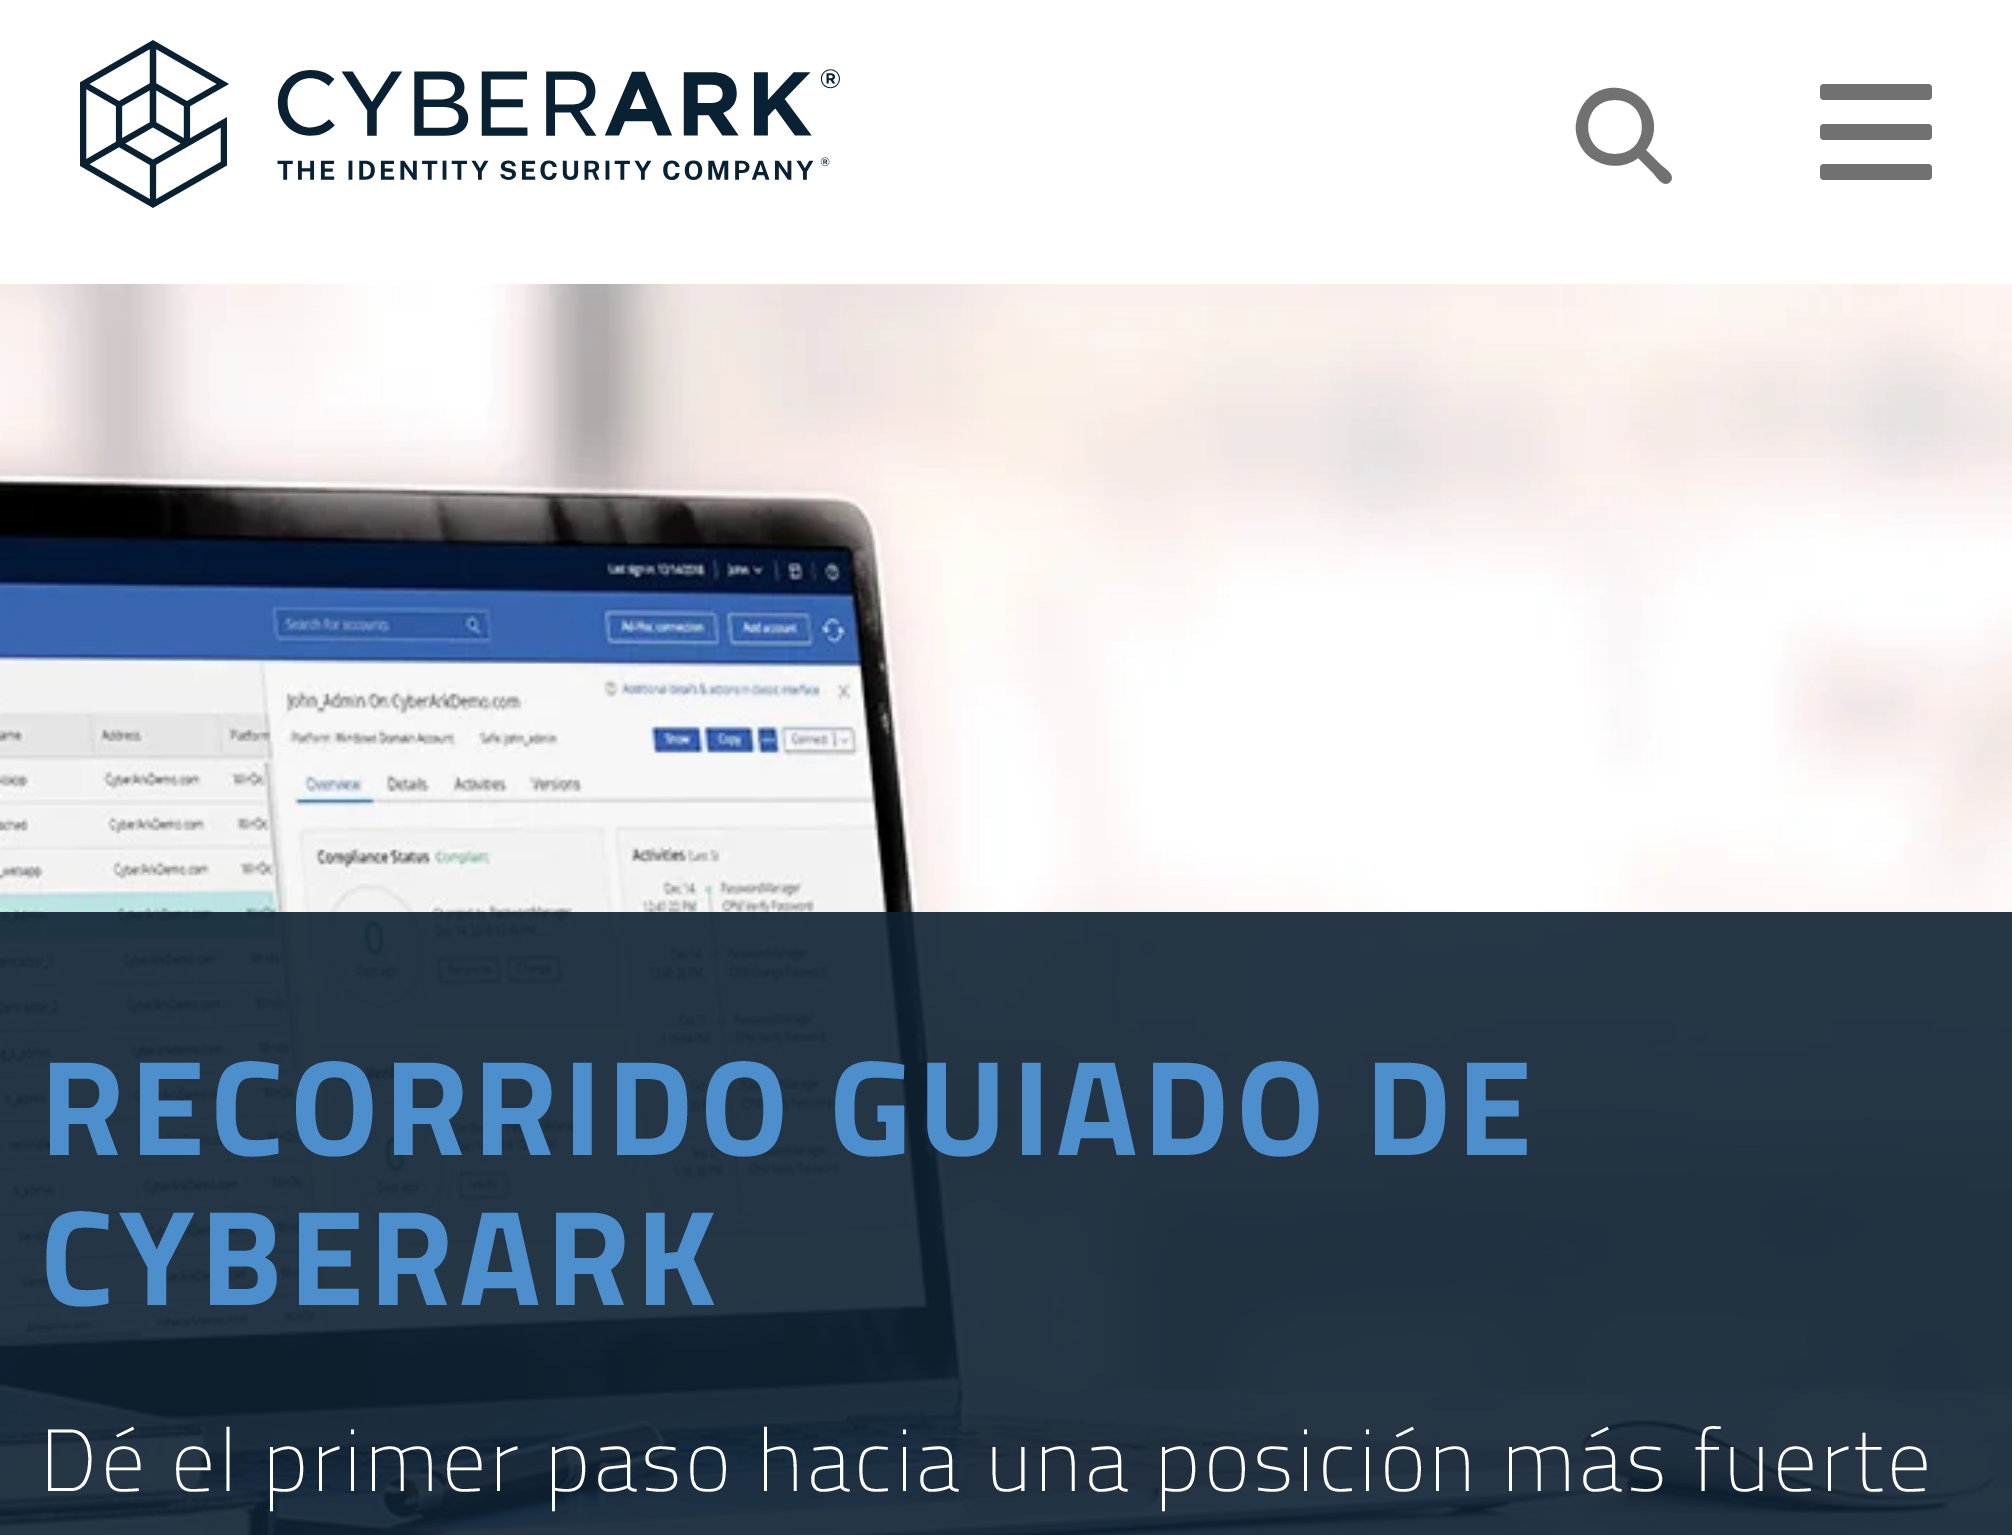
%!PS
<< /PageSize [2012 1535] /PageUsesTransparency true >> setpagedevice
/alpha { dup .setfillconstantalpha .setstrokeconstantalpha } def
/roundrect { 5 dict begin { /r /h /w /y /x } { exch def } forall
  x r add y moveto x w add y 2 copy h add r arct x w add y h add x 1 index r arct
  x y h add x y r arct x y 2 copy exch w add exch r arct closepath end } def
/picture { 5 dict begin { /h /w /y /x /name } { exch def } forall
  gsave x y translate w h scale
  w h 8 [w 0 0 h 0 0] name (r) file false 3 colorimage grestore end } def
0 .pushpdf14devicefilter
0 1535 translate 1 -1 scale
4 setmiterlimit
1 setgray
0 0 2012 1535 rectfill
(img1.rgb) 80 40 760 168 picture
0.443 setgray
newpath 1654 127 moveto 1654 136 1651 143 1646 150 curveto 1662 166 lineto 1666 169 1676 176 1670 182 curveto 1664 188 1657 178 1654 174 curveto 1638 158 lineto 1624 169 1604 168 1590 157 curveto 1582 151 1577 141 1576 131 curveto 1575 122 1578 113 1583 105 curveto 1604 73 1653 89 1654 127 curveto closepath 1615 154 moveto 1651 154 1651 100 1615 100 curveto 1579 100 1579 154 1615 154 curveto closepath fill
1820 84 112 16 4 roundrect fill
1820 124 112 16 4 roundrect fill
1820 164 112 16 4 roundrect fill
(img2.rgb) 0 284 2012 1251 picture
0.9 alpha
0.055 0.129 0.196 setrgbcolor
0 912 2012 623 rectfill
/TitilliumWeb-Bold [136 0 0 -136 0 0] selectfont
1 alpha
0.302 0.561 0.8 setrgbcolor
40 1155 moveto 5.4 0 (RECORRIDO GUIADO DE) ashow
40 1305 moveto 5.4 0 (CYBERARK) ashow
/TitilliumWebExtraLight-ExtraLight [88 0 0 -88 0 0] selectfont
1 setgray
40 1491 moveto 3.5 0 (Dé el primer paso hacia una posición más fuerte) ashow
.poppdf14devicefilter showpage
